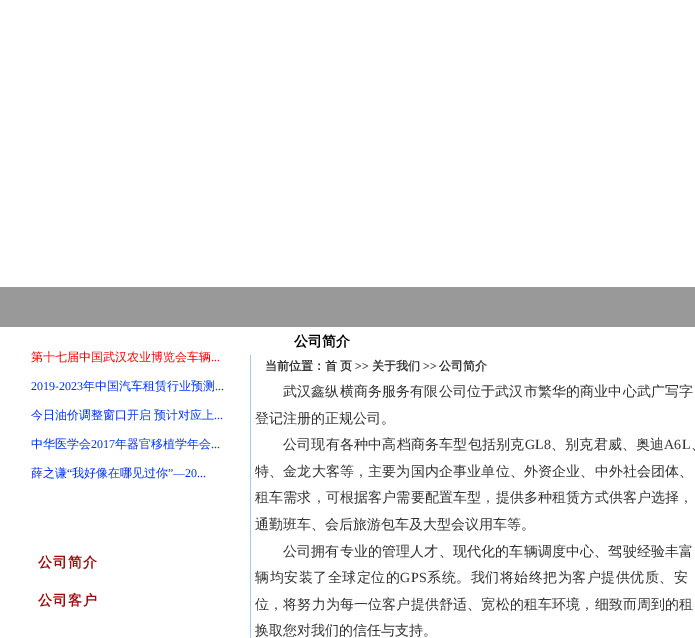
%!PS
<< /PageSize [695 638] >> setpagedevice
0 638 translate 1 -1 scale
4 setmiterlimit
1 setgray
0 0 695 638 rectfill
0.6 setgray
0 287 695 40 rectfill
/WenQuanYiZenHei-Medium [12 0 0 -12 0 0] selectfont
1 0 0 setrgbcolor
31 361 moveto (第十七届中国武汉农业博览会车辆) show
/LiberationSerif-Regular [12 0 0 -12 0 0] selectfont
211 361 moveto (...) show
0 0.2 1 setrgbcolor
31 390 moveto (2019-2023) show
/WenQuanYiZenHei-Medium [12 0 0 -12 0 0] selectfont
83 390 moveto (年中国汽车租赁行业预测) show
/LiberationSerif-Regular [12 0 0 -12 0 0] selectfont
215 390 moveto (...) show
/WenQuanYiZenHei-Medium [12 0 0 -12 0 0] selectfont
31 419 moveto (今日油价调整窗口开启) show
154 419 moveto (预计对应上) show
/LiberationSerif-Regular [12 0 0 -12 0 0] selectfont
214 419 moveto (...) show
/WenQuanYiZenHei-Medium [12 0 0 -12 0 0] selectfont
31 448 moveto (中华医学会) show
/LiberationSerif-Regular [12 0 0 -12 0 0] selectfont
91 448 moveto (2017) show
/WenQuanYiZenHei-Medium [12 0 0 -12 0 0] selectfont
115 448 moveto (年器官移植学年会) show
/LiberationSerif-Regular [12 0 0 -12 0 0] selectfont
211 448 moveto (...) show
/WenQuanYiZenHei-Medium [12 0 0 -12 0 0] selectfont
31 477 moveto (薛之谦) show
/LiberationSerif-Regular [12 0 0 -12 0 0] selectfont
67 477 moveto (“) show
/WenQuanYiZenHei-Medium [12 0 0 -12 0 0] selectfont
72 477 moveto (我好像在哪见过你) show
/LiberationSerif-Regular [12 0 0 -12 0 0] selectfont
168 477 moveto (”—20...) show
/WenQuanYiZenHei-Bold [14 0 0 -14 0 0] selectfont
0.62 0.043 0.059 setrgbcolor
38 567 moveto 1 0 (公司简介) ashow
38 605 moveto 1 0 (公司客户) ashow
0 setgray
294 346 moveto (公司简介) show
0.639 0.792 0.929 setrgbcolor
250 355 1 283 rectfill
/WenQuanYiZenHei-Bold [12 0 0 -12 0 0] selectfont
0.2 setgray
265 370 moveto (当前位置：) show
325 370 moveto -1 0 32 (首 页) widthshow
/LiberationSerif-Bold [12 0 0 -12 0 0] selectfont
355 370 moveto (>>) show
/WenQuanYiZenHei-Bold [12 0 0 -12 0 0] selectfont
372 370 moveto (关于我们) show
/LiberationSerif-Bold [12 0 0 -12 0 0] selectfont
423 370 moveto (>>) show
/WenQuanYiZenHei-Bold [12 0 0 -12 0 0] selectfont
439 370 moveto (公司简介) show
/WenQuanYiZenHei-Medium [14 0 0 -14 0 0] selectfont
283 396 moveto 0.15 0 (武汉鑫纵横商务服务有限公司位于武汉市繁华的商业中心武广写字) ashow
255 423 moveto (登记注册的正规公司。) show
283 449 moveto 0.2 0 (公司现有各种中高档商务车型包括别克) ashow
/LiberationSerif-Regular [14 0 0 -14 0 0] selectfont
525 449 moveto 0.2 0 (GL8) ashow
/WenQuanYiZenHei-Medium [14 0 0 -14 0 0] selectfont
551 449 moveto 0.2 0 (、别克君威、奥迪) ashow
/LiberationSerif-Regular [14 0 0 -14 0 0] selectfont
664 449 moveto 0.2 0 (A6L) ashow
/WenQuanYiZenHei-Medium [14 0 0 -14 0 0] selectfont
691 449 moveto 0.2 0 (、) ashow
255 476 moveto 0.15 0 (特、金龙大客等，主要为国内企事业单位、外资企业、中外社会团体、) ashow
255 502 moveto 0.15 0 (租车需求，可根据客户需要配置车型，提供多种租赁方式供客户选择，) ashow
255 529 moveto (通勤班车、会后旅游包车及大型会议用车等。) show
283 556 moveto 0.15 0 (公司拥有专业的管理人才、现代化的车辆调度中心、驾驶经验丰富) ashow
255 582 moveto 0.5 0 (辆均安装了全球定位的) ashow
/LiberationSerif-Regular [14 0 0 -14 0 0] selectfont
400 582 moveto 0.5 0 (GPS) ashow
/WenQuanYiZenHei-Medium [14 0 0 -14 0 0] selectfont
427 582 moveto 0.5 0 (系统。我们将始终把为客户提供优质、安) ashow
255 609 moveto 0.15 0 (位，将努力为每一位客户提供舒适、宽松的租车环境，细致而周到的租) ashow
255 635 moveto (换取您对我们的信任与支持。) show
showpage
